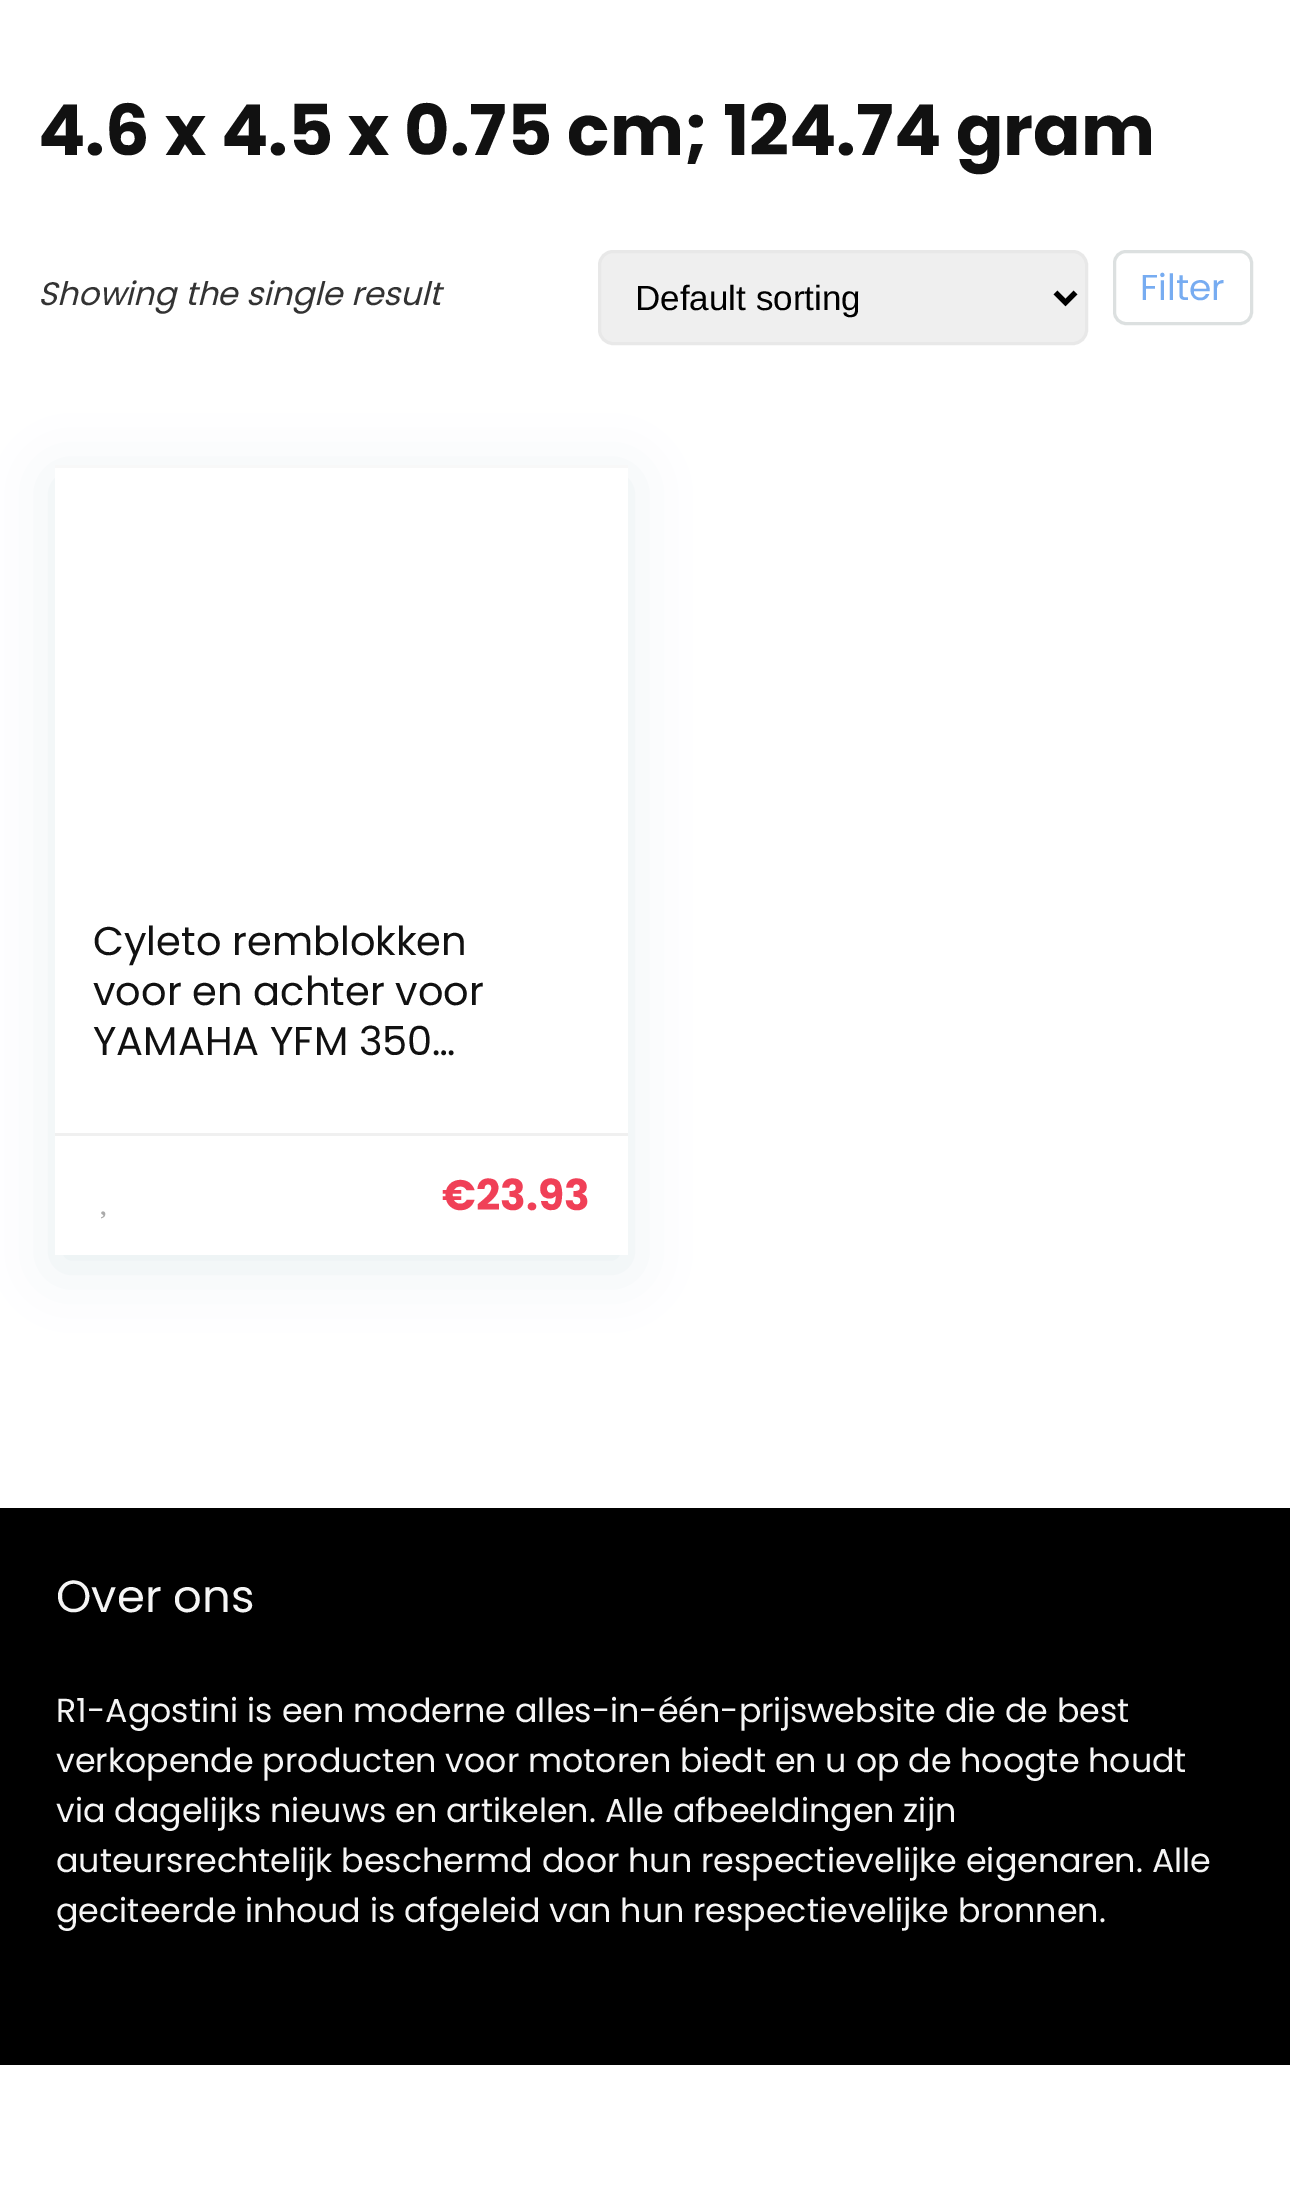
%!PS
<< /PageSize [1290 2202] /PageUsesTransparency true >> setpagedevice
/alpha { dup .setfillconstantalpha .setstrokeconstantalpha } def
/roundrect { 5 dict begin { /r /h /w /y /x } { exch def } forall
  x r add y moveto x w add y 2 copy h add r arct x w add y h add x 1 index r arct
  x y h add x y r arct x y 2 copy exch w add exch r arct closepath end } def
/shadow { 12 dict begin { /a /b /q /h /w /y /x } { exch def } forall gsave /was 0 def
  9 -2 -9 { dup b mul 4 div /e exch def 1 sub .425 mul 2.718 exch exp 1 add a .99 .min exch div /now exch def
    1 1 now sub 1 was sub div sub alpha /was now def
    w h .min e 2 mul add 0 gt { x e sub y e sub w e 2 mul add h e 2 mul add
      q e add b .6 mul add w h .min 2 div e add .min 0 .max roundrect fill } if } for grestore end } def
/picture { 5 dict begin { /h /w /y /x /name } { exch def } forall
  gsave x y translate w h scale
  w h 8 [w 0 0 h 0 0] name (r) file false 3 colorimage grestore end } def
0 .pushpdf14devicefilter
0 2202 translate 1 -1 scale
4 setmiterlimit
1 setgray
0 0 1290 2202 rectfill
/Poppins-Bold [70 0 0 -70 0 0] selectfont
0.067 setgray
38 155 moveto (4.6 x 4.5 x 0.75 cm; 124.74 gram) show
/Poppins-Italic [32.5 0 0 -32.5 0 0] selectfont
0.2 setgray
38 305 moveto (Showing the single result) show
0.937 setgray
599.5 251.5 487 92 13.5 roundrect gsave fill grestore
0.91 setgray
3 setlinewidth
stroke
0 setgray
5 setlinewidth
newpath 1055.5 292.5 moveto 1065.5 302.5 lineto 1075.5 292.5 lineto stroke
/LiberationSans-Regular [35 0 0 -35 0 0] selectfont
635 310 moveto (Default sorting) show
0.863 0.878 0.878 setrgbcolor
3 setlinewidth
1114.5 251.5 137 72 11.5 roundrect stroke
/Poppins-Regular [36 0 0 -36 0 0] selectfont
0.467 0.675 0.945 setrgbcolor
1140 300 moveto (Filter) show
0.737 0.812 0.859 setrgbcolor
55 478 573 790 0 29 0.35 shadow
1 setgray
55 468 573 787 rectfill
0.973 setgray
55 465 573 3 rectfill
/Poppins-Regular [40 0 0 -40 0 0] selectfont
0.067 setgray
93 955 moveto (Cyleto remblokken) show
93 1005 moveto (voor en achter voor) show
93 1055 moveto (YAMAHA YFM 350…) show
0.941 setgray
55 1133 573 3 rectfill
/Poppins-Bold [42.5 0 0 -42.5 0 0] selectfont
0.941 0.251 0.341 setrgbcolor
442 1210 moveto (€23.93) show
(img1.rgb) 101 1211 5 8 picture
0 setgray
0 1508 1290 557 rectfill
/Poppins-Regular [45 0 0 -45 0 0] selectfont
0.961 setgray
56 1612 moveto (Over ons) show
/Poppins-Regular [33.25 0 0 -33.25 0 0] selectfont
56 1722 moveto (R1-Agostini is een moderne alles-in-één-prijswebsite die de best) show
56 1772 moveto (verkopende producten voor motoren biedt en u op de hoogte houdt) show
56 1822 moveto (via dagelijks nieuws en artikelen. Alle afbeeldingen zijn) show
56 1872 moveto (auteursrechtelijk beschermd door hun respectievelijke eigenaren. Alle) show
56 1922 moveto (geciteerde inhoud is afgeleid van hun respectievelijke bronnen.) show
.poppdf14devicefilter showpage
